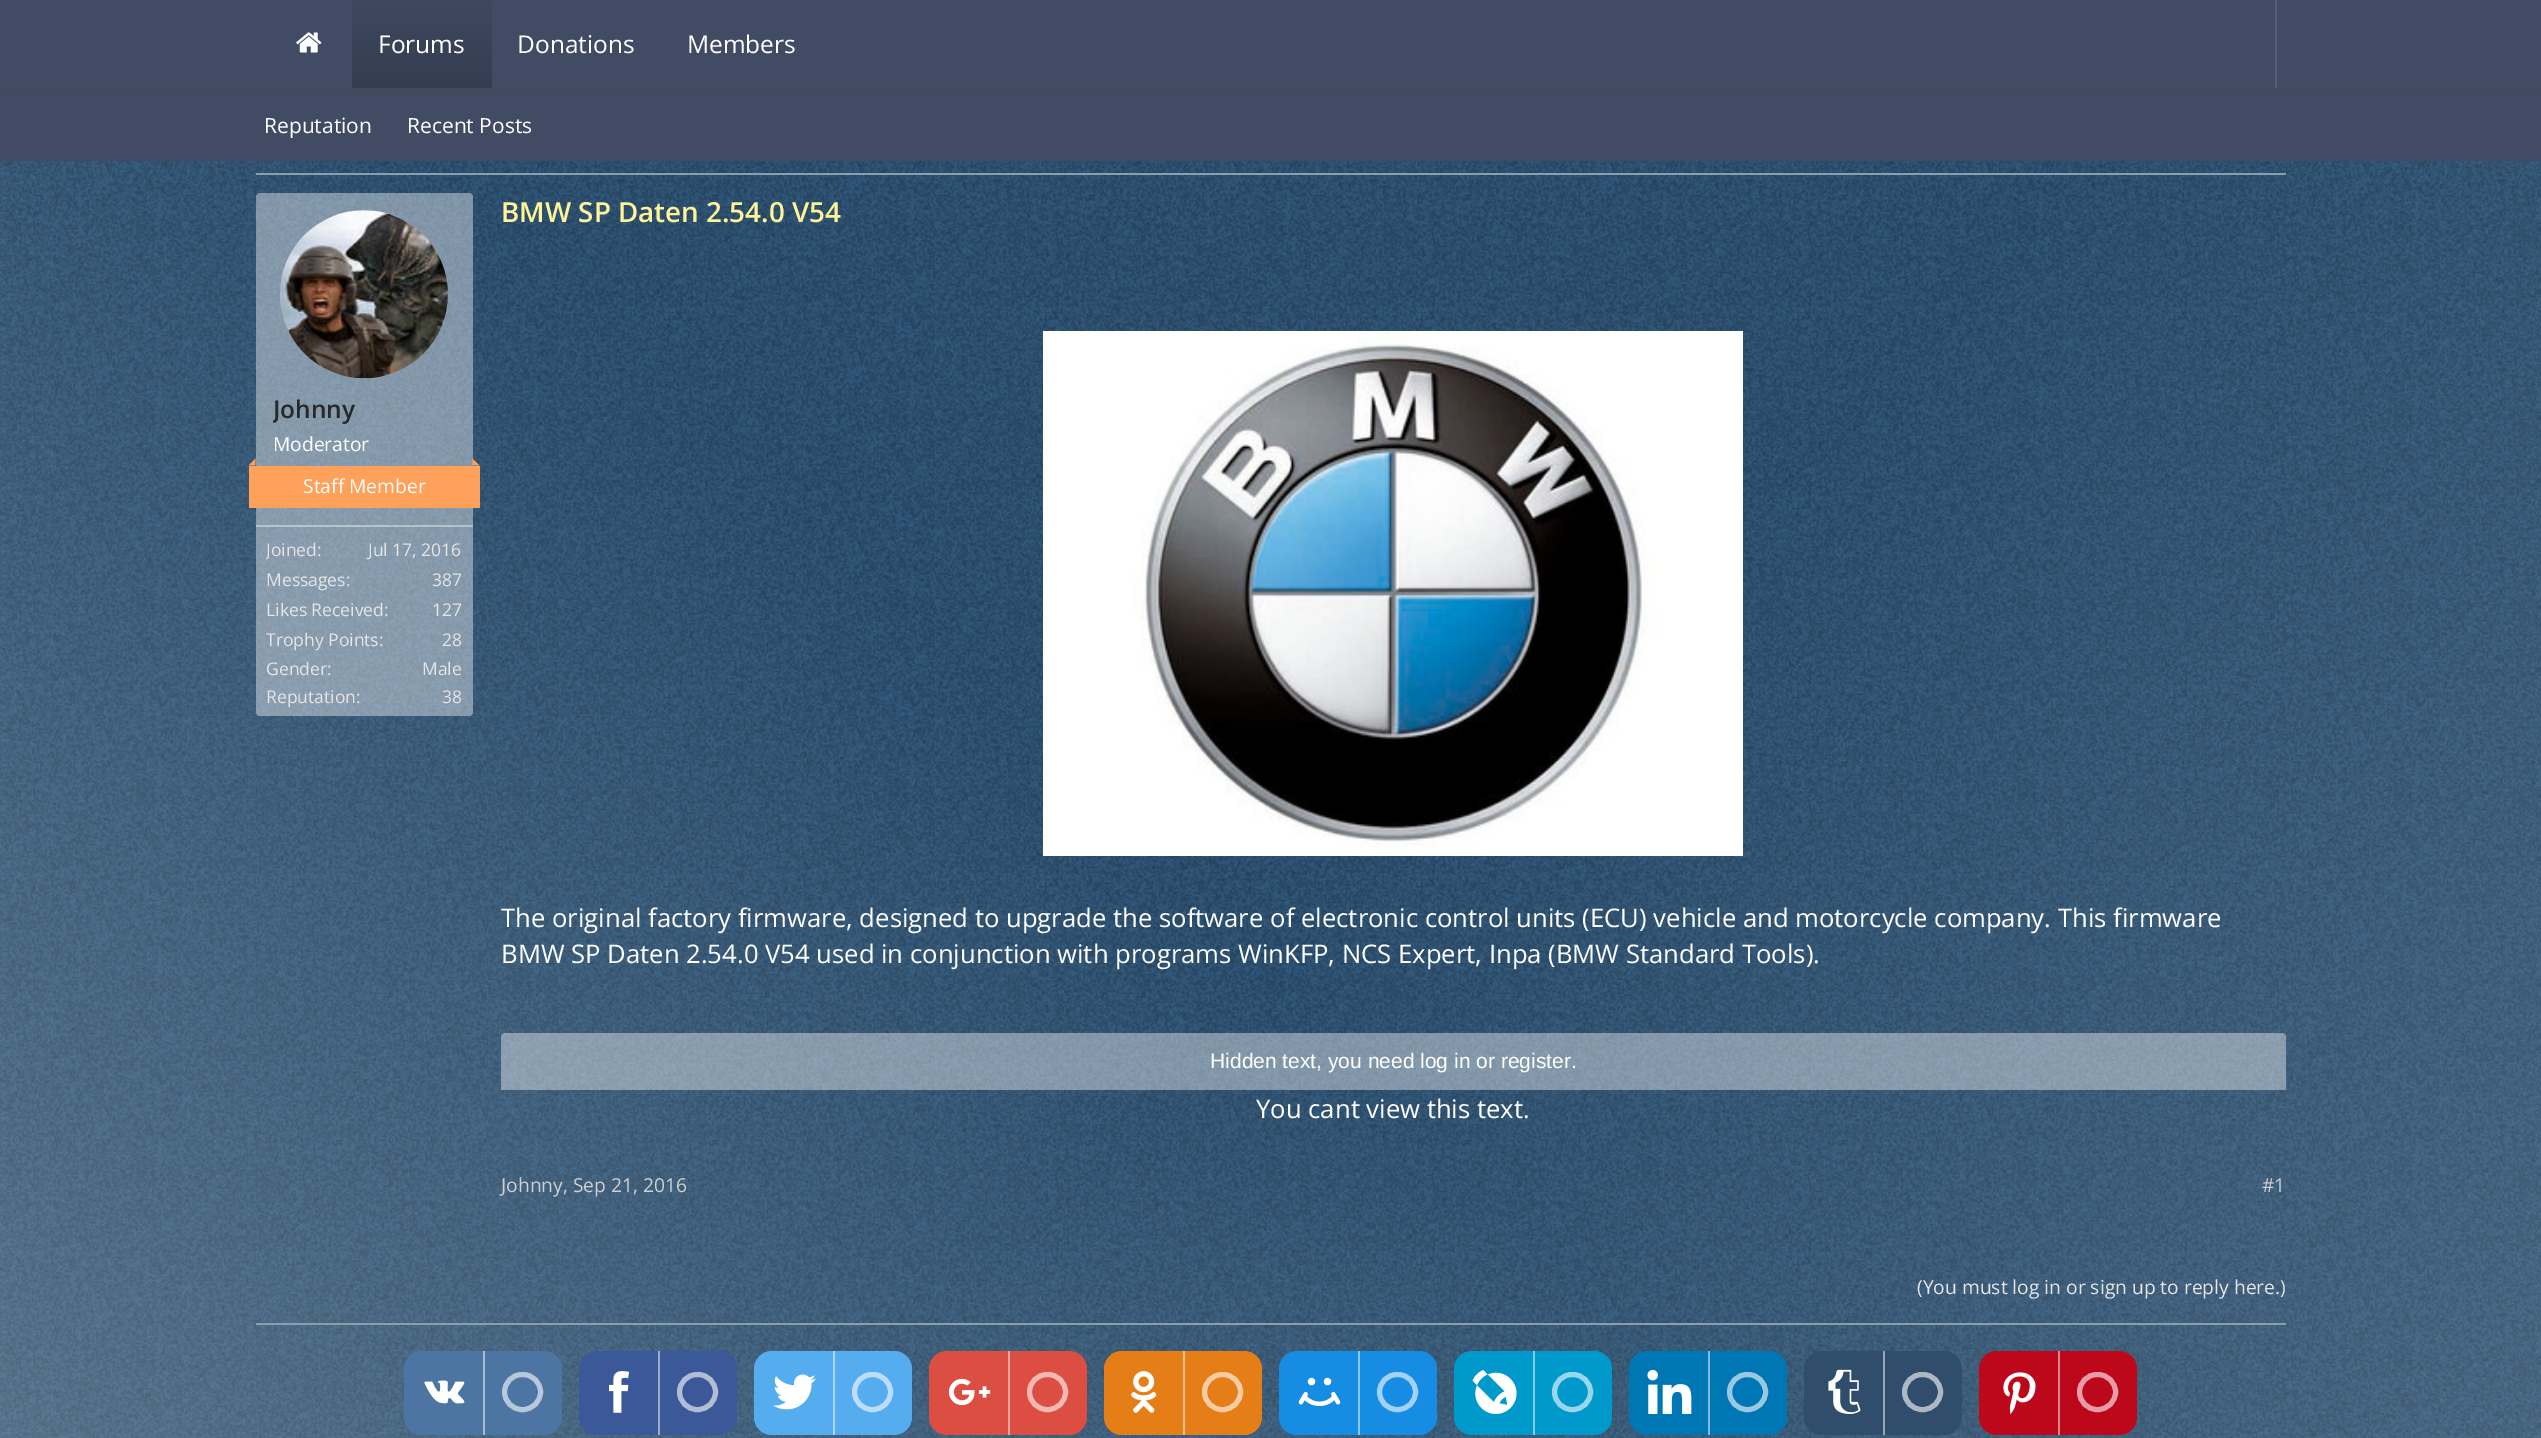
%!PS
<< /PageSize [2541 1438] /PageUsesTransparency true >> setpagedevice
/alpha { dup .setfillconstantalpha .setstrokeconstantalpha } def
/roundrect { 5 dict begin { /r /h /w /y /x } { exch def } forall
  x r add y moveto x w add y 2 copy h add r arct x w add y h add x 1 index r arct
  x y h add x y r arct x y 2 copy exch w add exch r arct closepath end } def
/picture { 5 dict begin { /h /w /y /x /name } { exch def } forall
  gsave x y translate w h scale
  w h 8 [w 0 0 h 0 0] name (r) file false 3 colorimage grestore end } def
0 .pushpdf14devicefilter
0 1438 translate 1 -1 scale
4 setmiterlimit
1 setgray
0 0 2541 1438 rectfill
(img1.rgb) 0 161 2541 1277 picture
0.255 0.298 0.392 setrgbcolor
0 0 2541 161 rectfill
(img2.rgb) 296 32 26 21 picture
/OpenSans-Regular [24.5 0 0 -24.5 0 0] selectfont
1 setgray
687 53 moveto (Members) show
gsave newpath 352 0 moveto 492 0 lineto 492 88 lineto 352 88 lineto closepath clip newpath
<< /ShadingType 2 /ColorSpace /DeviceRGB /Coords [422 0 422 88] /Extend [true true] /Function << /FunctionType 2 /Domain [0 1] /C0 [0.243 0.282 0.373] /C1 [0.204 0.239 0.314] /N 1 >> >> shfill grestore
378 53 moveto (Forums) show
0.259 0.29 0.357 setrgbcolor
0 88 2541 4 rectfill
/OpenSans-Regular [21 0 0 -21 0 0] selectfont
1 setgray
264 133 moveto (Reputation) show
407 133 moveto (Recent Posts) show
/OpenSans-Regular [24.5 0 0 -24.5 0 0] selectfont
517 53 moveto (Donations) show
0.329 0.369 0.455 setrgbcolor
2275 0 2 88 rectfill
0.537 0.624 0.682 setrgbcolor
256 173 2030 2 rectfill
0.4 alpha
1 setgray
256 193 217 523 4 roundrect fill
0.2 alpha
newpath 364 294 84 0 360 arc closepath fill
1 alpha
(img3.rgb) 280 210 168 169 picture
gsave
273 396 182 28 rectclip
/OpenSans-SemiBold [24.5 0 0 -24.5 0 0] selectfont
0.157 setgray
273 418 moveto (Johnny) show
grestore
/OpenSans-Regular [19.25 0 0 -19.25 0 0] selectfont
273 451 moveto (Moderator) show
1 0.627 0.357 setrgbcolor
249 466 231 42 rectfill
newpath 255.5 465.5 moveto 248.5 465.5 lineto 255.5 458.5 lineto closepath fill
newpath 479.5 465.5 moveto 472.5 465.5 lineto 472.5 458.5 lineto closepath fill
1 setgray
303 493 moveto (Staff Member) show
0.4 alpha
256 525 217 2 rectfill
gsave
266 537 196 27 rectclip
/OpenSans-Regular [17.5 0 0 -17.5 0 0] selectfont
1 alpha
0.898 setgray
266 556 moveto (Joined:) show
grestore
/OpenSans-Regular [17.5 0 0 -17.5 0 0] selectfont
1 alpha
0.898 setgray
368 556 moveto (Jul 17, 2016) show
266 586 moveto (Messages:) show
432 586 moveto (387) show
266 616 moveto (Likes Received:) show
432 616 moveto (127) show
266 646 moveto (Trophy Points:) show
442 646 moveto (28) show
266 675 moveto (Gender:) show
422 675 moveto (Male) show
266 703 moveto (Reputation:) show
442 703 moveto (38) show
/OpenSans-SemiBold [27.75 0 0 -27.75 0 0] selectfont
1 0.957 0.592 setrgbcolor
501 222 moveto (BMW SP Daten 2.54.0 V54) show
(img4.rgb) 1043 331 700 525 picture
gsave
501 193 1785 962 rectclip
/OpenSans-Regular [25.67 0 0 -25.67 0 0] selectfont
1 setgray
501 927 moveto (The original factory firmware, designed to upgrade the software of electronic control units \(ECU\) vehicle and motorcycle company. This firmware) show
grestore
/OpenSans-Regular [25.67 0 0 -25.67 0 0] selectfont
1 setgray
501 963 moveto (BMW SP Daten 2.54.0 V54 used in conjunction with programs WinKFP, NCS Expert, Inpa \(BMW Standard Tools\).) show
0.4 alpha
newpath 505 1033 moveto 2282 1033 lineto 2284 1033 2286 1035 2286 1037 curveto 2286 1090 lineto 501 1090 lineto 501 1037 lineto 501 1035 503 1033 505 1033 curveto closepath fill
/LiberationSans-Regular [21 0 0 -21 0 0] selectfont
1 alpha
1210 1068 moveto (Hidden text, you need log in or register.) show
/OpenSans-Regular [25.67 0 0 -25.67 0 0] selectfont
1256 1118 moveto (You cant view this text.) show
/OpenSans-Regular [19.25 0 0 -19.25 0 0] selectfont
0.816 setgray
501 1192 moveto (Johnny, Sep 21, 2016) show
2262 1192 moveto (#1) show
0.898 setgray
1917 1294 moveto (\(You must log in or sign up to reply here.\)) show
0.537 0.624 0.682 setrgbcolor
256 1323 2030 2 rectfill
0.302 0.459 0.639 setrgbcolor
404 1351 158 84 18 roundrect fill
(img5.rgb) 424 1380 41 24 picture
0.651 0.729 0.82 setrgbcolor
483 1351 2 84 rectfill
0.722 0.784 0.855 setrgbcolor
5 setlinewidth
504.5 1374.5 36 35 17.5 roundrect stroke
0.231 0.349 0.596 setrgbcolor
579 1351 158 84 18 roundrect fill
(img6.rgb) 609 1371 21 42 picture
0.616 0.675 0.8 setrgbcolor
658 1351 2 84 rectfill
0.694 0.741 0.839 setrgbcolor
679.5 1374.5 36 35 17.5 roundrect stroke
0.333 0.675 0.933 setrgbcolor
754 1351 158 84 18 roundrect fill
(img7.rgb) 773 1374 43 36 picture
0.667 0.839 0.969 setrgbcolor
833 1351 2 84 rectfill
0.733 0.871 0.973 setrgbcolor
854.5 1374.5 36 35 17.5 roundrect stroke
0.863 0.306 0.255 setrgbcolor
929 1351 158 84 18 roundrect fill
(img8.rgb) 948 1378 43 28 picture
0.933 0.655 0.627 setrgbcolor
1008 1351 2 84 rectfill
0.945 0.722 0.702 setrgbcolor
1029.5 1374.5 36 35 17.5 roundrect stroke
0.902 0.494 0.09 setrgbcolor
1104 1351 158 84 18 roundrect fill
(img9.rgb) 1131 1371 26 42 picture
0.953 0.749 0.545 setrgbcolor
1183 1351 2 84 rectfill
0.961 0.796 0.635 setrgbcolor
1204.5 1374.5 36 35 17.5 roundrect stroke
0.086 0.553 0.886 setrgbcolor
1279 1351 158 84 18 roundrect fill
(img10.rgb) 1298 1377 43 30 picture
0.545 0.776 0.945 setrgbcolor
1358 1351 2 84 rectfill
0.635 0.82 0.953 setrgbcolor
1379.5 1374.5 36 35 17.5 roundrect stroke
0 0.6 0.8 setrgbcolor
1454 1351 158 84 18 roundrect fill
(img11.rgb) 1472 1370 45 44 picture
0.502 0.8 0.902 setrgbcolor
1533 1351 2 84 rectfill
0.6 0.839 0.922 setrgbcolor
1554.5 1374.5 36 35 17.5 roundrect stroke
0 0.467 0.71 setrgbcolor
1629 1351 158 84 18 roundrect fill
(img12.rgb) 1647 1369 45 45 picture
0.502 0.733 0.855 setrgbcolor
1708 1351 2 84 rectfill
0.6 0.788 0.882 setrgbcolor
1729.5 1374.5 36 35 17.5 roundrect stroke
0.188 0.306 0.424 setrgbcolor
1804 1351 158 84 18 roundrect fill
(img13.rgb) 1828 1369 33 45 picture
0.596 0.655 0.714 setrgbcolor
1883 1351 2 84 rectfill
0.675 0.722 0.769 setrgbcolor
1904.5 1374.5 36 35 17.5 roundrect stroke
0.741 0.031 0.11 setrgbcolor
1979 1351 158 84 18 roundrect fill
(img14.rgb) 2003 1372 33 42 picture
0.871 0.518 0.557 setrgbcolor
2058 1351 2 84 rectfill
0.898 0.612 0.643 setrgbcolor
2079.5 1374.5 36 35 17.5 roundrect stroke
.poppdf14devicefilter showpage
